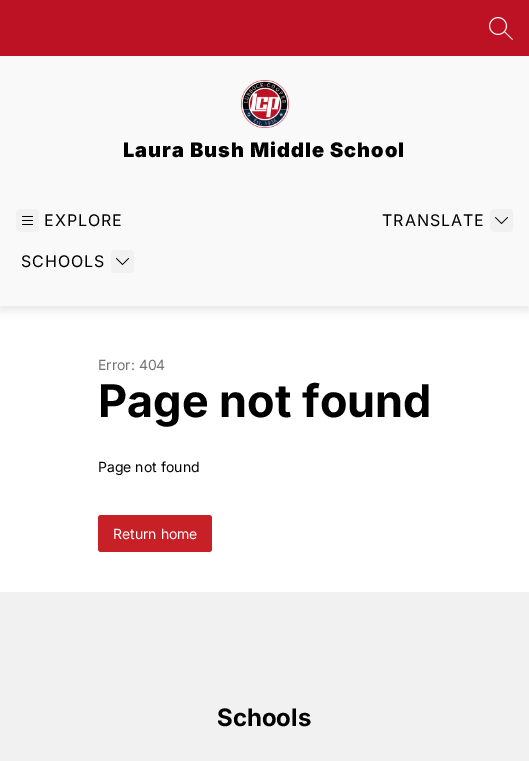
%!PS
<< /PageSize [529 761] /PageUsesTransparency true >> setpagedevice
/alpha { dup .setfillconstantalpha .setstrokeconstantalpha } def
/roundrect { 5 dict begin { /r /h /w /y /x } { exch def } forall
  x r add y moveto x w add y 2 copy h add r arct x w add y h add x 1 index r arct
  x y h add x y r arct x y 2 copy exch w add exch r arct closepath end } def
/shadow { 12 dict begin { /a /b /q /h /w /y /x } { exch def } forall gsave /was 0 def
  9 -2 -9 { dup b mul 4 div /e exch def 1 sub .425 mul 2.718 exch exp 1 add a .99 .min exch div /now exch def
    1 1 now sub 1 was sub div sub alpha /was now def
    w h .min e 2 mul add 0 gt { x e sub y e sub w e 2 mul add h e 2 mul add
      q e add b .6 mul add w h .min 2 div e add .min 0 .max roundrect fill } if } for grestore end } def
/picture { 5 dict begin { /h /w /y /x /name } { exch def } forall
  gsave x y translate w h scale
  w h 8 [w 0 0 h 0 0] name (r) file false 3 colorimage grestore end } def
0 .pushpdf14devicefilter
0 761 translate 1 -1 scale
4 setmiterlimit
1 setgray
0 0 529 761 rectfill
0 setgray
0 4 529 306 0 5 0.1 shadow
0.976 setgray
0 56 529 250 rectfill
0.741 0.071 0.141 setrgbcolor
0 0 529 56 rectfill
(img1.rgb) 489 17 24 23 picture
(img2.rgb) 241 80 48 48 picture
/Inter-Black [20 0 0 -20 0 0] selectfont
0 setgray
123 157 moveto 1 0 (Laura Bush Middle School) ashow
(img3.rgb) 16 209 23 23 picture
/Inter-Regular [16 0 0 -16 0 0] selectfont
44 226 moveto 1 0 (EXPLORE) ashow
21 267 moveto 1 0 (SCHOOLS) ashow
(img4.rgb) 111 250 23 23 picture
382 226 moveto 1 0 (TRANSLATE) ashow
(img4.rgb) 490 209 23 23 picture
/Inter-Regular [14 0 0 -14 0 0] selectfont
0.455 setgray
98 370 moveto (Error: 404) show
/Inter-Bold [45 0 0 -45 0 0] selectfont
0 setgray
98 417 moveto (Page not found) show
/Inter-Regular [14 0 0 -14 0 0] selectfont
98 472 moveto (Page not found) show
0.78 0.125 0.153 setrgbcolor
98 515 114 37 3 roundrect fill
1 setgray
113 539 moveto (Return home) show
0.945 setgray
0 592 529 169 rectfill
/Inter-Bold [24 0 0 -24 0 0] selectfont
0 setgray
217 726 moveto (Schools) show
.poppdf14devicefilter showpage
